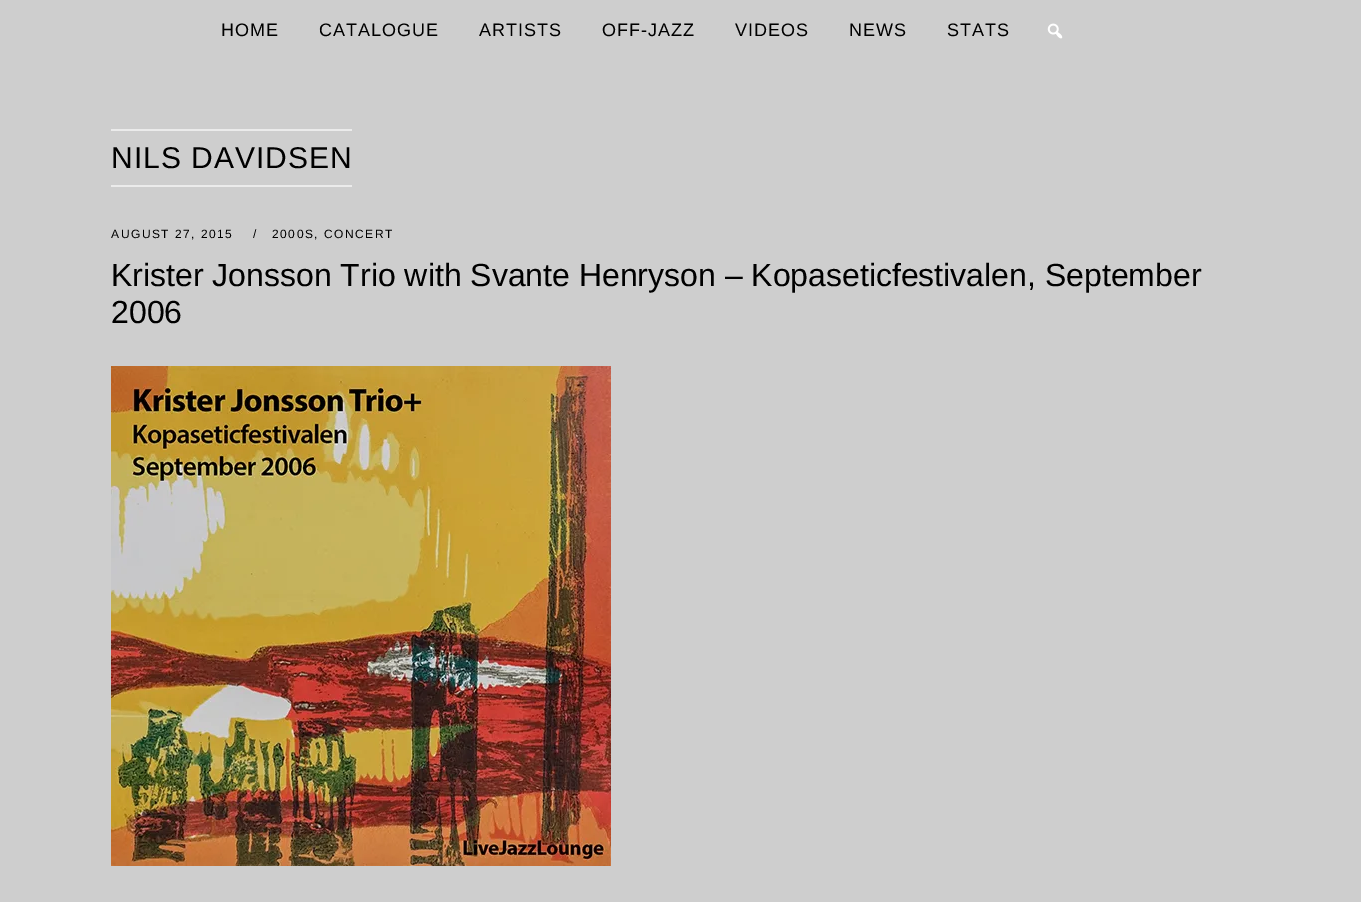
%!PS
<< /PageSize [1361 902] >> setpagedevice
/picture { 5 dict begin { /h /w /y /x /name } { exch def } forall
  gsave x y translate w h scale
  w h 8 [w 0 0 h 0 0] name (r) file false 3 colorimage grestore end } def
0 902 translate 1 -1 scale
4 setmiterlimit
0.808 setgray
0 0 1361 902 rectfill
/LiberationSans-Regular [18 0 0 -18 0 0] selectfont
0 setgray
221 36 moveto 1 0 (HOME) ashow
319 36 moveto 1 0 (CATALOGUE) ashow
479 36 moveto 1 0 (ARTISTS) ashow
602 36 moveto 1 0 (OFF-JAZZ) ashow
735 36 moveto 1 0 (VIDEOS) ashow
849 36 moveto 1 0 (NEWS) ashow
947 36 moveto 1 0 (STATS) ashow
(img1.rgb) 1047 23 16 16 picture
0.922 setgray
111 129 241 2 rectfill
111 185 241 2 rectfill
/LiberationSans-Regular [30 0 0 -30 0 0] selectfont
0 setgray
111 168 moveto 1 0 (NILS DAVIDSEN) ashow
/LiberationSans-Regular [12 0 0 -12 0 0] selectfont
111 238 moveto 1.5 0 (AUGUST 27, 2015) ashow
253 238 moveto 1.5 0 (/) ashow
272 238 moveto 1.5 0 (2000S, CONCERT) ashow
/LiberationSans-Regular [32 0 0 -32 0 0] selectfont
111 286 moveto (Krister Jonsson Trio with Svante Henryson – Kopaseticfestivalen, September) show
111 323 moveto (2006) show
(img2.rgb) 111 366 500 500 picture
showpage
